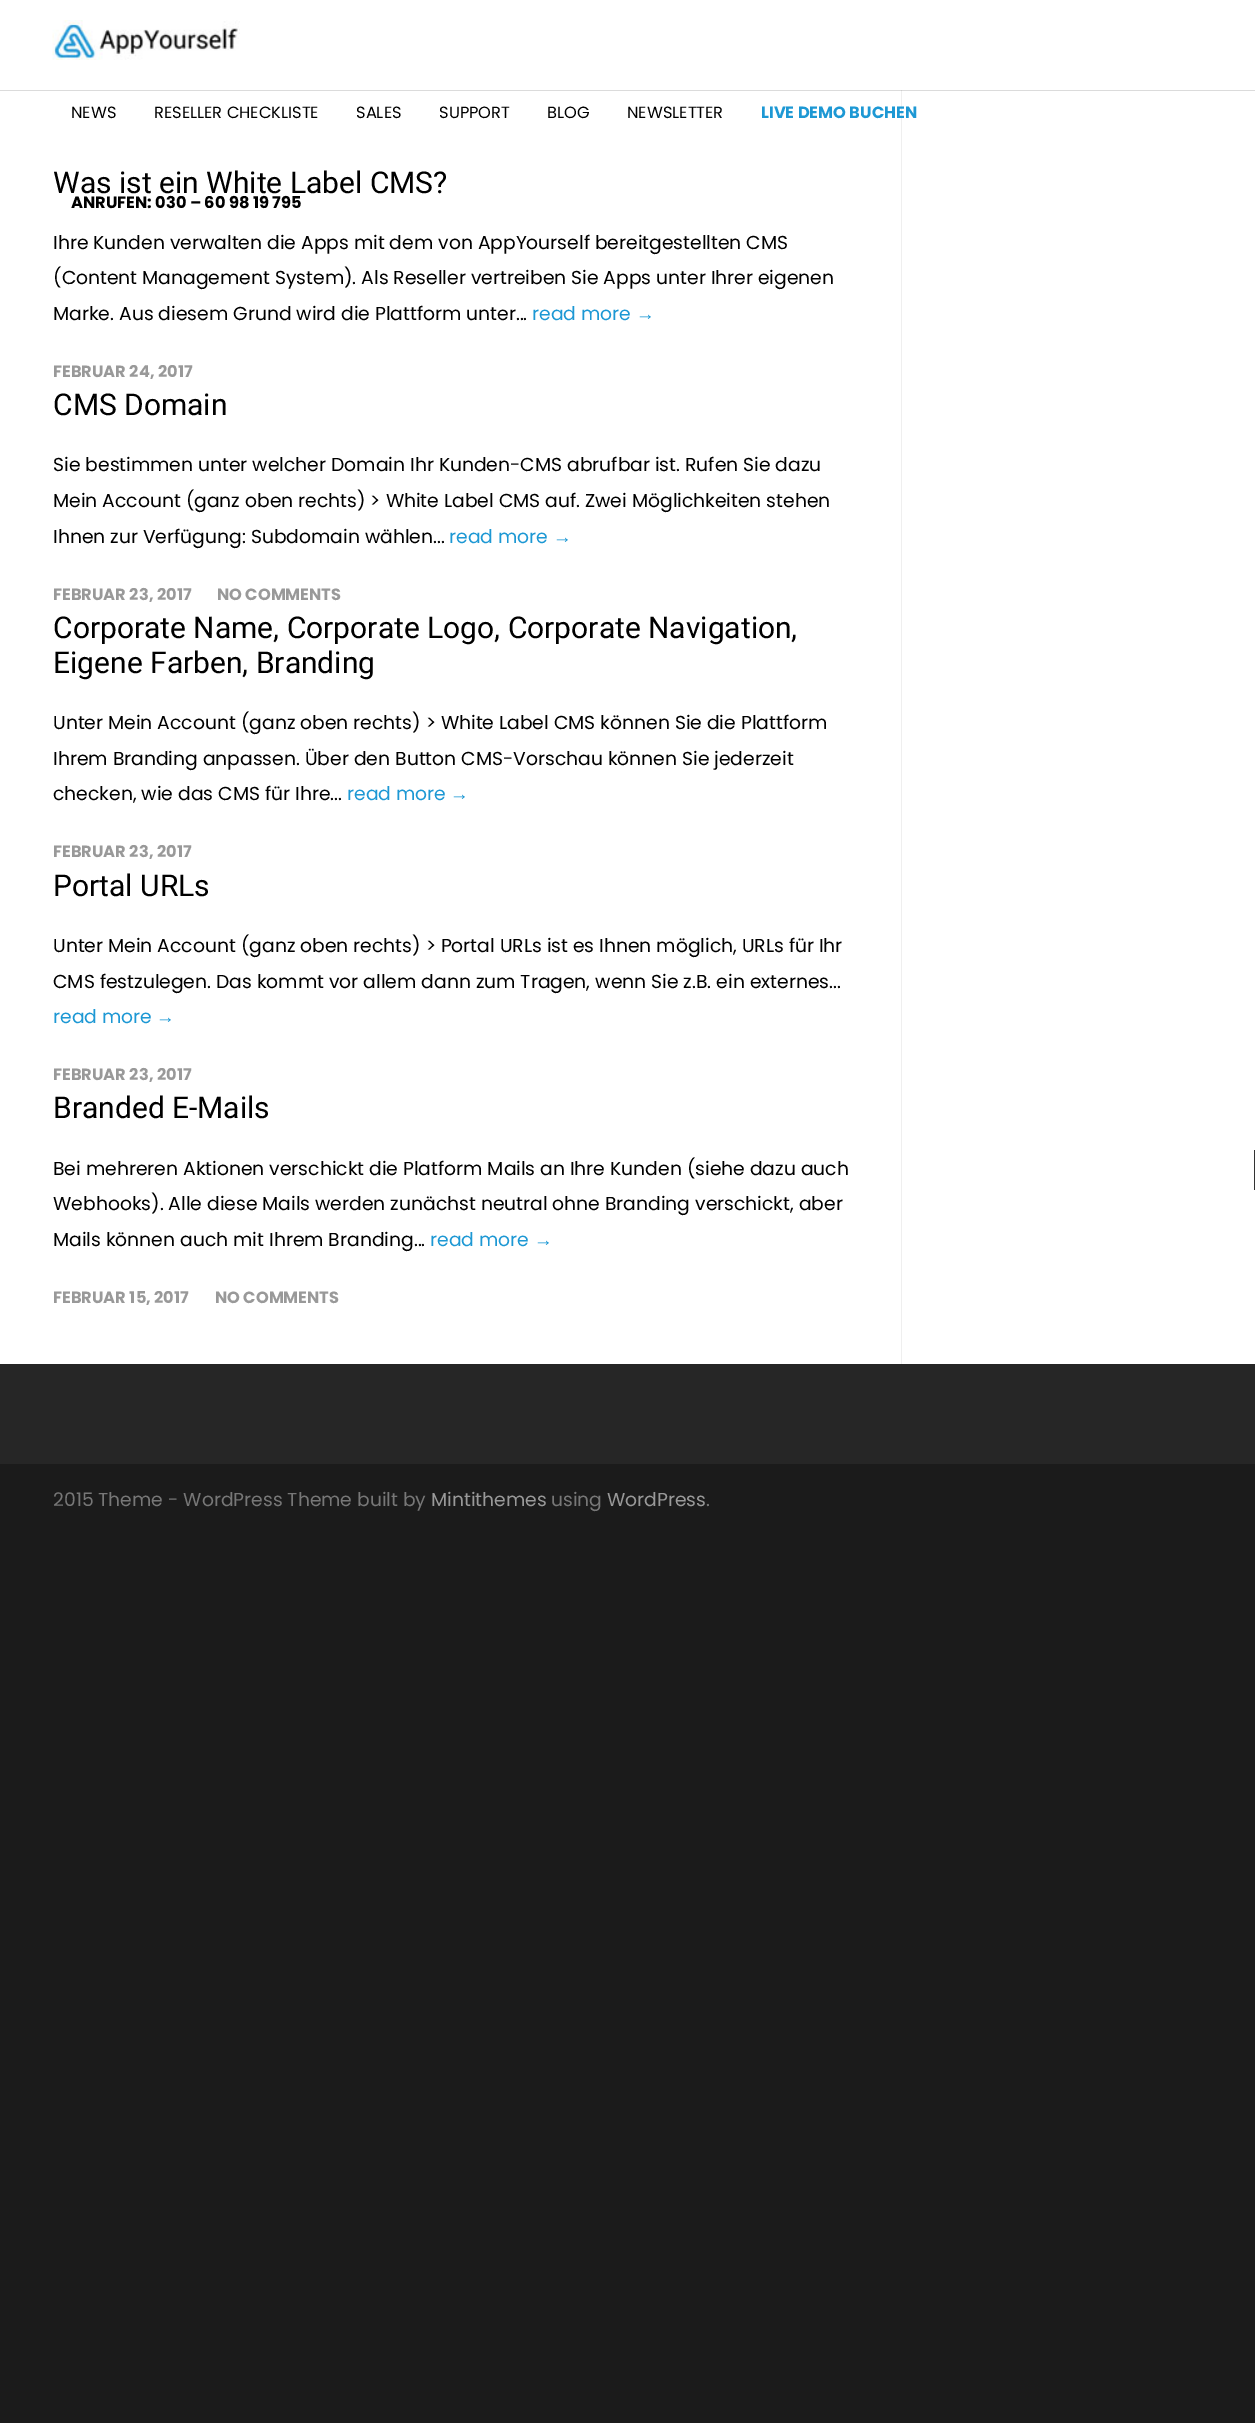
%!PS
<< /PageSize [1255 2423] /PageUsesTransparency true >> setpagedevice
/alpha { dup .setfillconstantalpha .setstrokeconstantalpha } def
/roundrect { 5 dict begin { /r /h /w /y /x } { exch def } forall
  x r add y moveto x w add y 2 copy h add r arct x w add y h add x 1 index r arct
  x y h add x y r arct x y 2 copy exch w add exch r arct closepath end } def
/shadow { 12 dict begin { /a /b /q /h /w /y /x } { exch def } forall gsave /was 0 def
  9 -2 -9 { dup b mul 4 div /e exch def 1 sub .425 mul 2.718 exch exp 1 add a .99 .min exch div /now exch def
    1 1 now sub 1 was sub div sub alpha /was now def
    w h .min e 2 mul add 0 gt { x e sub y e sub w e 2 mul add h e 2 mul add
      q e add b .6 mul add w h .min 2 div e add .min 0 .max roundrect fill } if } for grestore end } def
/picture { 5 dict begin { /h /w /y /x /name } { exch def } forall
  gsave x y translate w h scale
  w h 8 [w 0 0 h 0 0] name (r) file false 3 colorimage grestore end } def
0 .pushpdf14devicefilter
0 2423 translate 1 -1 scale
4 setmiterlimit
0.106 setgray
0 0 1255 2423 rectfill
1 setgray
0 0 1255 1364 rectfill
0.937 setgray
901 90 1 1274 rectfill
gsave
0 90 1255 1 rectclip
0 setgray
-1 -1 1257 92 0 0.5 0.16 shadow
grestore
(img1.rgb) 52 20 188 40 picture
/Poppins-Regular [16.25 0 0 -16.25 0 0] selectfont
0 setgray
71 118 moveto (NEWS) show
154 118 moveto (RESELLER CHECKLISTE) show
356 118 moveto (SALES) show
439 118 moveto (SUPPORT) show
547 118 moveto (BLOG) show
627 118 moveto (NEWSLETTER) show
/Poppins-Bold [16.25 0 0 -16.25 0 0] selectfont
0.114 0.596 0.831 setrgbcolor
761 118 moveto (LIVE DEMO BUCHEN) show
0 setgray
71 208 moveto (ANRUFEN: 030 – 60 98 19 795) show
/Roboto-Regular [30 0 0 -30 0 0] selectfont
53 193 moveto (Was ist ein White Label CMS?) show
/Poppins-Regular [18.75 0 0 -18.75 0 0] selectfont
53 249 moveto (Ihre Kunden verwalten die Apps mit dem von AppYourself bereitgestellten CMS) show
53 284 moveto (\(Content Management System\). Als Reseller vertreiben Sie Apps unter Ihrer eigenen) show
53 320 moveto (Marke. Aus diesem Grund wird die Plattform unter...) show
0.114 0.596 0.831 setrgbcolor
532 320 moveto (read more) show
/LiberationSans-Regular [18.75 0 0 -18.75 0 0] selectfont
636 320 moveto (→) show
/Poppins-Bold [16.25 0 0 -16.25 0 0] selectfont
0.6 setgray
53 377 moveto (FEBRUAR 24, 2017) show
/Roboto-Regular [30 0 0 -30 0 0] selectfont
0 setgray
53 415 moveto (CMS Domain) show
/Poppins-Regular [18.75 0 0 -18.75 0 0] selectfont
53 471 moveto (Sie bestimmen unter welcher Domain Ihr Kunden-CMS abrufbar ist. Rufen Sie dazu) show
53 507 moveto (Mein Account \(ganz oben rechts\) > White Label CMS auf. Zwei Möglichkeiten stehen) show
53 543 moveto (Ihnen zur Verfügung: Subdomain wählen...) show
0.114 0.596 0.831 setrgbcolor
449 543 moveto (read more) show
/LiberationSans-Regular [18.75 0 0 -18.75 0 0] selectfont
553 543 moveto (→) show
/Poppins-Bold [16.25 0 0 -16.25 0 0] selectfont
0.6 setgray
53 600 moveto (FEBRUAR 23, 2017) show
217 600 moveto (NO COMMENTS) show
/Roboto-Regular [30 0 0 -30 0 0] selectfont
0 setgray
53 638 moveto (Corporate Name, Corporate Logo, Corporate Navigation,) show
53 673 moveto (Eigene Farben, Branding) show
/Poppins-Regular [18.75 0 0 -18.75 0 0] selectfont
53 729 moveto (Unter Mein Account \(ganz oben rechts\) > White Label CMS können Sie die Plattform) show
53 765 moveto (Ihrem Branding anpassen. Über den Button CMS-Vorschau können Sie jederzeit) show
53 800 moveto (checken, wie das CMS für Ihre...) show
0.114 0.596 0.831 setrgbcolor
347 800 moveto (read more) show
/LiberationSans-Regular [18.75 0 0 -18.75 0 0] selectfont
450 800 moveto (→) show
/Poppins-Bold [16.25 0 0 -16.25 0 0] selectfont
0.6 setgray
53 857 moveto (FEBRUAR 23, 2017) show
/Roboto-Regular [30 0 0 -30 0 0] selectfont
0 setgray
53 896 moveto (Portal URLs) show
/Poppins-Regular [18.75 0 0 -18.75 0 0] selectfont
53 952 moveto (Unter Mein Account \(ganz oben rechts\) > Portal URLs ist es Ihnen möglich, URLs für Ihr) show
53 988 moveto (CMS festzulegen. Das kommt vor allem dann zum Tragen, wenn Sie z.B. ein externes...) show
0.114 0.596 0.831 setrgbcolor
53 1023 moveto (read more) show
/LiberationSans-Regular [18.75 0 0 -18.75 0 0] selectfont
156 1023 moveto (→) show
/Poppins-Bold [16.25 0 0 -16.25 0 0] selectfont
0.6 setgray
53 1080 moveto (FEBRUAR 23, 2017) show
/Roboto-Regular [30 0 0 -30 0 0] selectfont
0 setgray
53 1118 moveto (Branded E-Mails) show
/Poppins-Regular [18.75 0 0 -18.75 0 0] selectfont
53 1175 moveto (Bei mehreren Aktionen verschickt die Platform Mails an Ihre Kunden \(siehe dazu auch) show
53 1210 moveto (Webhooks\). Alle diese Mails werden zunächst neutral ohne Branding verschickt, aber) show
53 1246 moveto (Mails können auch mit Ihrem Branding...) show
0.114 0.596 0.831 setrgbcolor
430 1246 moveto (read more) show
/LiberationSans-Regular [18.75 0 0 -18.75 0 0] selectfont
534 1246 moveto (→) show
/Poppins-Bold [16.25 0 0 -16.25 0 0] selectfont
0.6 setgray
53 1303 moveto (FEBRUAR 15, 2017) show
215 1303 moveto (NO COMMENTS) show
0.149 setgray
0 1364 1255 100 rectfill
/Poppins-Regular [18.75 0 0 -18.75 0 0] selectfont
0.467 setgray
53 1506 moveto (2015 Theme - WordPress Theme built by) show
0.6 setgray
431 1506 moveto (Mintithemes) show
0.467 setgray
551 1506 moveto (using) show
0.6 setgray
607 1506 moveto (WordPress) show
0.467 setgray
706 1506 moveto (.) show
0.2 setgray
1254 1150 1 40 rectfill
.poppdf14devicefilter showpage
